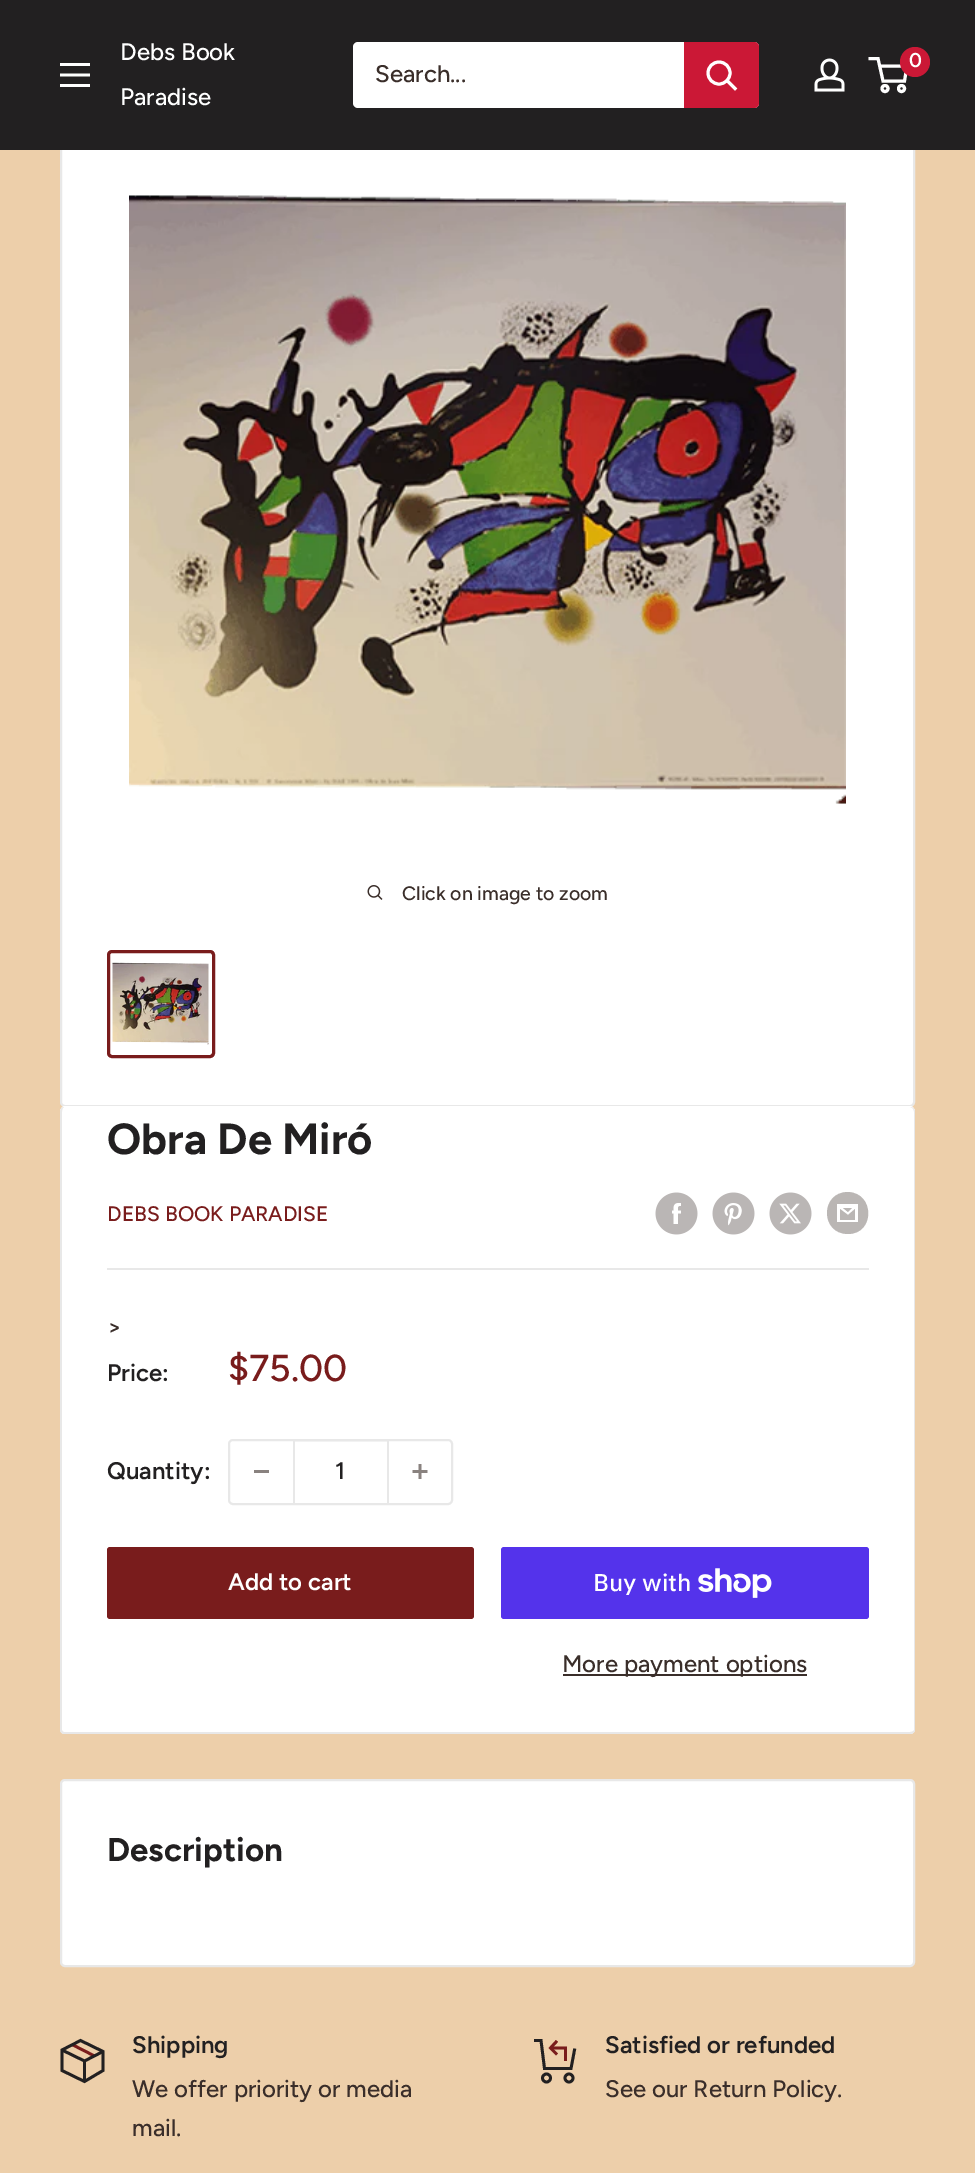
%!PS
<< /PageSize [975 2173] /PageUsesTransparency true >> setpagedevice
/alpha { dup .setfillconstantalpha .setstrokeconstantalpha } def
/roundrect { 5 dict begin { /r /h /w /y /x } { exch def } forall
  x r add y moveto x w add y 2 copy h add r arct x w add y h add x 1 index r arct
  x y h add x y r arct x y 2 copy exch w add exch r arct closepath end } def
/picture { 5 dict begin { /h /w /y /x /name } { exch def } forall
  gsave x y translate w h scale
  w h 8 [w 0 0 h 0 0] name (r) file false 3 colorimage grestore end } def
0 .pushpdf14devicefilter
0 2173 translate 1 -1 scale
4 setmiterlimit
0.929 0.812 0.667 setrgbcolor
0 0 975 2173 rectfill
1 setgray
61 111 853 995 4 roundrect gsave fill grestore
0.91 setgray
2 setlinewidth
stroke
0.133 0.125 0.129 setrgbcolor
0 0 975 150 rectfill
/Figtree-Medium [24 0 0 -24 0 0] selectfont
1 setgray
120 60 moveto (Debs Book) show
120 105 moveto (Paradise) show
(img1.rgb) 814 58 31 34 picture
3 setlinewidth
newpath 885 88.5 3 0 360 arc closepath stroke
newpath 901.5 88.5 3 0 360 arc closepath stroke
newpath 879.5 66 moveto 907 66 lineto 904.5 81 lineto 883 81 lineto 878 58.5 lineto 868.5 58.5 lineto stroke
0.796 0.094 0.212 setrgbcolor
newpath 915 62 15 0 360 arc closepath fill
/Figtree-SemiBold [20 0 0 -20 0 0] selectfont
1 setgray
909 67 moveto (0) show
(img2.rgb) 60 63 30 24 picture
353 42 406 66 5 roundrect fill
/Figtree-Medium [24 0 0 -24 0 0] selectfont
0.227 0.18 0.165 setrgbcolor
375 82 moveto (Search...) show
0.796 0.094 0.212 setrgbcolor
newpath 684 42 moveto 754 42 lineto 757 42 759 44 759 47 curveto 759 103 lineto 759 106 757 108 754 108 curveto 684 108 lineto closepath fill
1 setgray
2 setlinecap
newpath 735 88.5 moveto 727.5 81 lineto stroke
0 setlinecap
newpath 719 73 11 0 360 arc closepath stroke
(img3.rgb) 129 195 717 609 picture
(img4.rgb) 367 885 16 15 picture
/Figtree-Medium [19.5 0 0 -19.5 0 0] selectfont
0.227 0.18 0.165 setrgbcolor
402 900 moveto (Click on image to zoom) show
0.475 0.11 0.11 setrgbcolor
108.5 951.5 105 105 3.5 roundrect stroke
(img5.rgb) 112 962 97 83 picture
1 setgray
newpath 65 1106 moveto 62 1106 60 1109 60 1112 curveto 60 1109 62 1107 64 1107 curveto 910 1107 lineto 913 1107 915 1109 915 1112 curveto 915 1109 913 1106 910 1106 curveto closepath fill
60 1107 855 627 5 roundrect fill
0.91 setgray
newpath 64 1107 moveto 910 1107 lineto 913 1107 915 1109 915 1112 curveto 915 1730 lineto 915 1732 913 1734 910 1734 curveto 64 1734 lineto 62 1734 60 1732 60 1730 curveto 60 1112 lineto 60 1109 62 1107 64 1107 curveto closepath 64 1107 moveto 910 1107 lineto 912 1107 914 1109 914 1112 curveto 914 1730 lineto 914 1731 912 1732 910 1732 curveto 64 1732 lineto 63 1732 62 1731 62 1730 curveto 62 1112 lineto 62 1109 63 1107 64 1107 curveto closepath eofill
/Figtree-Bold [43.5 0 0 -43.5 0 0] selectfont
0.133 0.125 0.129 setrgbcolor
107 1154 moveto (Obra De Miró) show
/Figtree-Medium [21 0 0 -21 0 0] selectfont
0.475 0.11 0.11 setrgbcolor
107 1221 moveto (DEBS BOOK PARADISE) show
(img6.rgb) 655 1192 43 43 picture
(img7.rgb) 712 1192 43 43 picture
(img8.rgb) 769 1192 43 43 picture
0.729 0.714 0.706 setrgbcolor
newpath 848 1234 moveto 820 1234 820 1192 848 1192 curveto 875 1193 875 1234 848 1234 curveto closepath 843 1208 moveto 852 1208 lineto 848 1212 lineto closepath 855 1209 moveto 855 1220 lineto 840 1220 lineto 840 1209 lineto 848 1215 lineto closepath 858 1204 moveto 837 1204 lineto 837 1222 lineto 858 1222 lineto closepath fill
0.91 setgray
107 1268 762 2 rectfill
/Figtree-Medium [24 0 0 -24 0 0] selectfont
0.227 0.18 0.165 setrgbcolor
107 1335 moveto (>) show
/Figtree-SemiBold [24 0 0 -24 0 0] selectfont
0.133 0.125 0.129 setrgbcolor
107 1381 moveto (Price:) show
/Figtree-Medium [37.5 0 0 -37.5 0 0] selectfont
0.475 0.11 0.11 setrgbcolor
228 1381 moveto ($75.00) show
/Figtree-SemiBold [24 0 0 -24 0 0] selectfont
0.133 0.125 0.129 setrgbcolor
107 1479 moveto (Quantity:) show
0.91 setgray
2 setlinewidth
229 1440 223 64 4 roundrect stroke
0.537 0.51 0.498 setrgbcolor
254 1470 15 3 rectfill
0.4 alpha
0.91 setgray
294 1441 93 1 rectfill
1 alpha
387 1440 2 63 rectfill
293 1440 2 63 rectfill
/Figtree-Medium [24 0 0 -24 0 0] selectfont
0.133 0.125 0.129 setrgbcolor
335 1479 moveto (1) show
(img9.rgb) 412 1464 16 15 picture
0.475 0.11 0.11 setrgbcolor
107 1547 367 72 3 roundrect fill
/Figtree-SemiBold [24 0 0 -24 0 0] selectfont
1 setgray
228 1590 moveto (Add to cart) show
0.329 0.2 0.922 setrgbcolor
501 1547 368 72 3 roundrect fill
/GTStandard-Medium [24 0 0 -24 0 0] selectfont
1 setgray
593 1591 moveto (Buy with) show
(img10.rgb) 698 1568 74 30 picture
0.227 0.18 0.165 setrgbcolor
563 1674 244 2 rectfill
/Figtree-Medium [24 0 0 -24 0 0] selectfont
562 1672 moveto (More payment options) show
1 setgray
61 1780 853 186 4 roundrect gsave fill grestore
0.91 setgray
stroke
/Figtree-Bold [33 0 0 -33 0 0] selectfont
0.133 0.125 0.129 setrgbcolor
107 1861 moveto (Description) show
0.475 0.11 0.11 setrgbcolor
2.8 setlinewidth
newpath 72 2044.5 moveto 94.5 2056 lineto stroke
0.133 0.125 0.129 setrgbcolor
newpath 103 2051.5 moveto 84.5 2061 lineto 62 2050 lineto 84.5 2061 moveto 84.5 2081.5 lineto stroke
2 setlinecap
newpath 103 2051.5 moveto 103 2070.5 lineto 84.5 2081.5 lineto 62 2070.5 lineto 62 2050 lineto 80.5 2040.5 lineto closepath stroke
/Figtree-SemiBold [24 0 0 -24 0 0] selectfont
132 2053 moveto (Shipping) show
/Figtree-Medium [24 0 0 -24 0 0] selectfont
0.227 0.18 0.165 setrgbcolor
132 2097 moveto (We offer priority or media) show
132 2136 moveto (mail.) show
0.475 0.11 0.11 setrgbcolor
0 setlinecap
newpath 550.5 2048 moveto 565.5 2048 lineto 565.5 2061 lineto stroke
2 setlinecap
newpath 556 2053.5 moveto 550.5 2048 lineto 556 2042 lineto stroke
0.133 0.125 0.129 setrgbcolor
newpath 574.5 2050 moveto 571 2068.5 lineto 544.5 2068.5 lineto 541 2040.5 lineto 535.5 2040.5 lineto stroke
0 setlinecap
newpath 546.5 2078 4 0 360 arc closepath stroke
newpath 569 2078 4 0 360 arc closepath stroke
/Figtree-SemiBold [24 0 0 -24 0 0] selectfont
605 2053 moveto (Satisfied or refunded) show
/Figtree-Medium [24 0 0 -24 0 0] selectfont
0.227 0.18 0.165 setrgbcolor
605 2097 moveto (See our Return Policy.) show
.poppdf14devicefilter showpage
